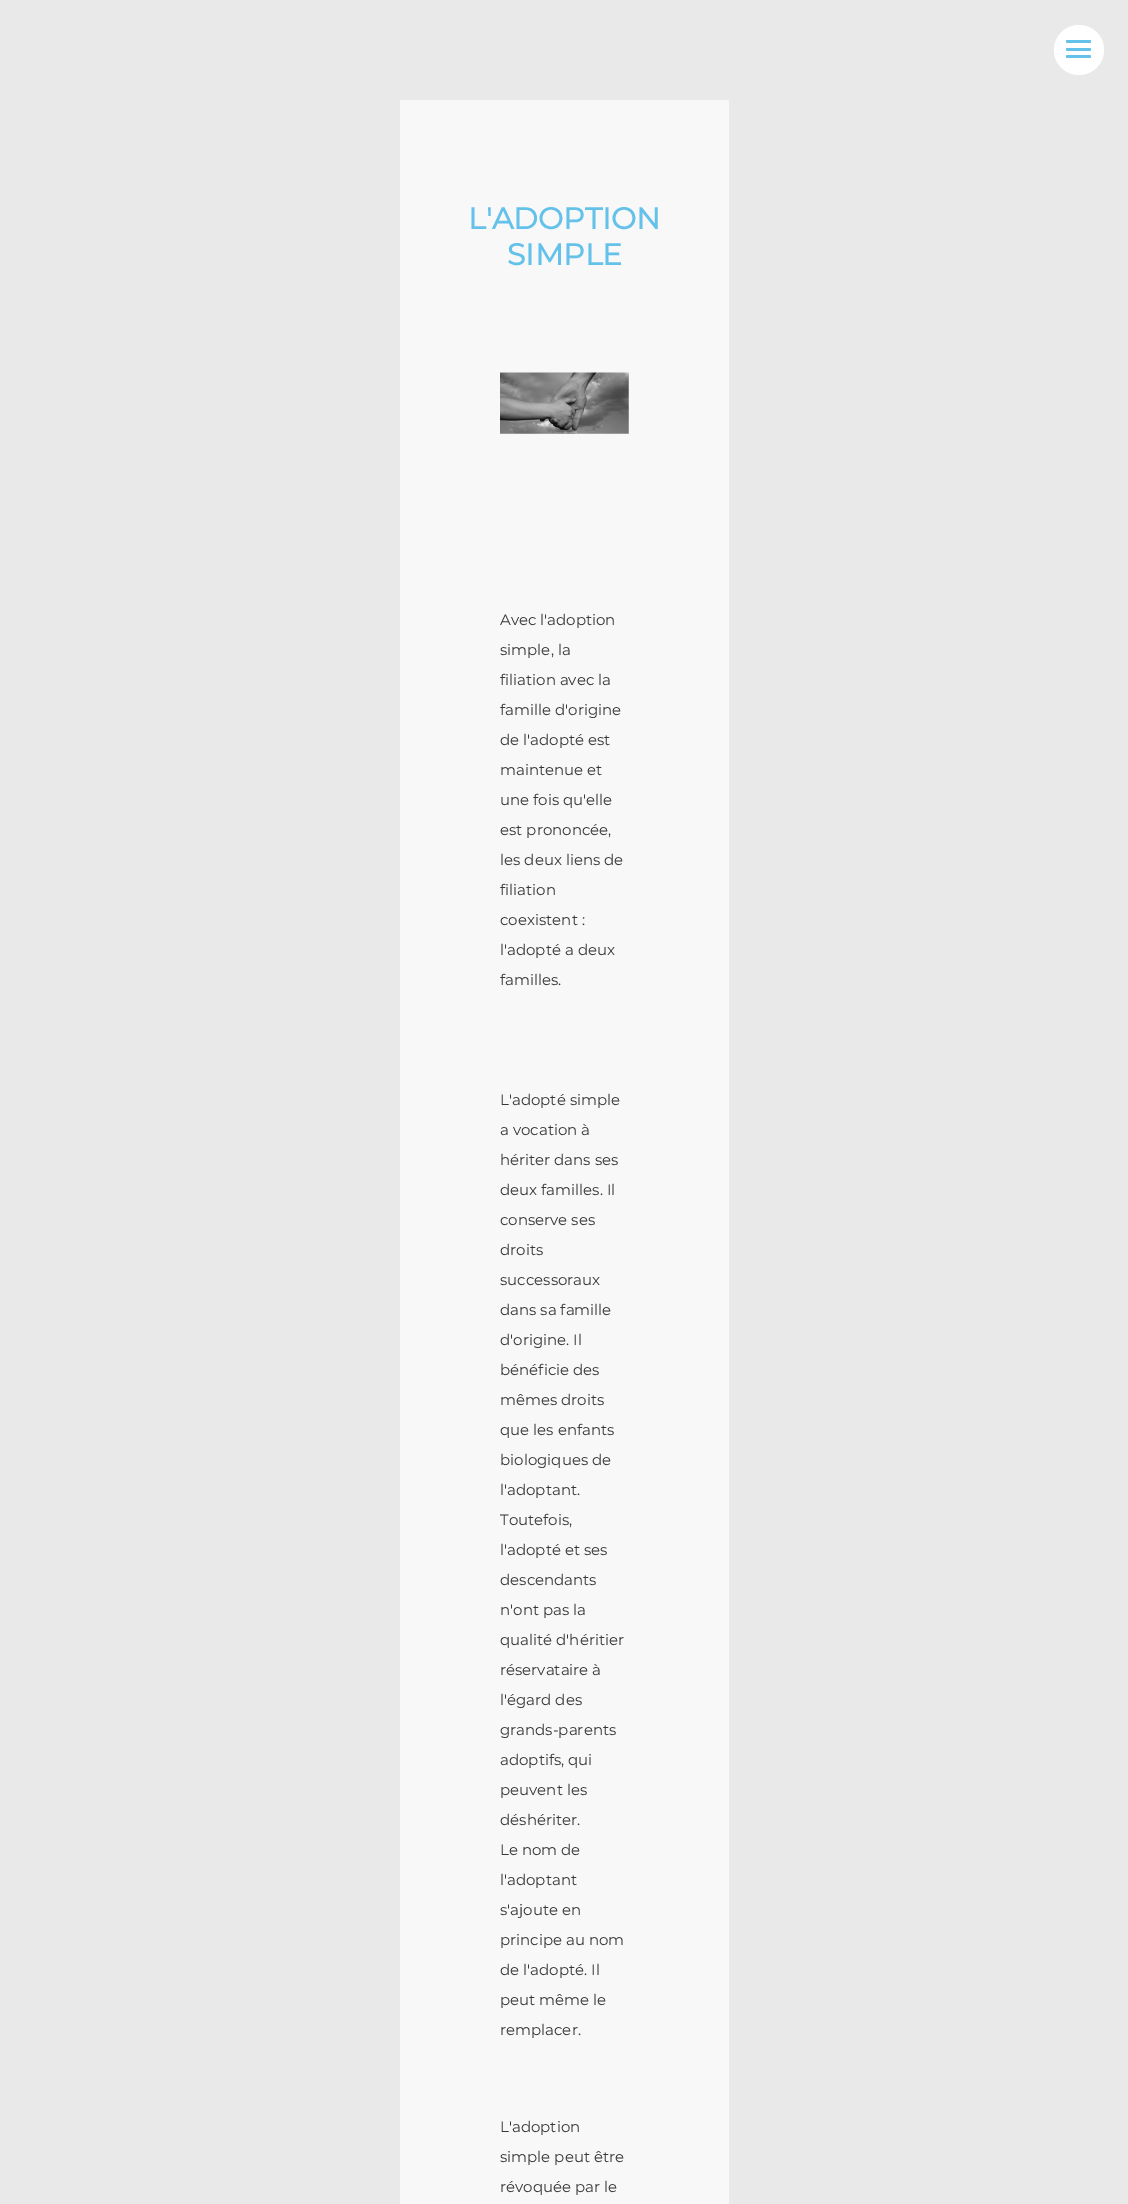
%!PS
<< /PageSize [1128 2204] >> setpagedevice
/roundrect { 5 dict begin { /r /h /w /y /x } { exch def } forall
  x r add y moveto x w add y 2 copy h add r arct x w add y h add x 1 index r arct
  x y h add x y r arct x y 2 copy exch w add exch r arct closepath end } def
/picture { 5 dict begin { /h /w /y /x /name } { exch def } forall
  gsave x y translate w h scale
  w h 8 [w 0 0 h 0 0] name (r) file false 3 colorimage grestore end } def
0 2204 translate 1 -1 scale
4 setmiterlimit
0.914 setgray
0 0 1128 2204 rectfill
1 setgray
newpath 1079 50 25 0 360 arc closepath fill
0.392 0.757 0.918 setrgbcolor
1066 40 25 3 1.5 roundrect fill
1066 48 25 3 1.5 roundrect fill
1066 55 25 3 1.5 roundrect fill
0.973 setgray
400 100 329 2104 rectfill
/Montserrat-Bold [30 0 0 -30 0 0] selectfont
0.392 0.757 0.918 setrgbcolor
468 229 moveto (L'ADOPTION) show
507 265 moveto (SIMPLE) show
(img1.rgb) 500 372 129 62 picture
/Montserrat-Regular [15 0 0 -15 0 0] selectfont
0.212 0.216 0.22 setrgbcolor
500 625 moveto (Avec l'adoption) show
500 655 moveto (simple, la) show
500 685 moveto (filiation avec la) show
500 715 moveto (famille d'origine) show
500 745 moveto (de l'adopté est) show
500 775 moveto (maintenue et) show
500 805 moveto (une fois qu'elle) show
500 835 moveto (est prononcée,) show
500 865 moveto (les deux liens de) show
500 895 moveto (filiation) show
500 925 moveto (coexistent :) show
500 955 moveto (l'adopté a deux) show
500 985 moveto (familles.) show
500 1105 moveto (L'adopté simple) show
500 1135 moveto (a vocation à) show
500 1165 moveto (hériter dans ses) show
500 1195 moveto (deux familles. Il) show
500 1225 moveto (conserve ses) show
500 1255 moveto (droits) show
500 1285 moveto (successoraux) show
500 1315 moveto (dans sa famille) show
500 1345 moveto (d'origine. Il) show
500 1375 moveto (bénéficie des) show
500 1405 moveto (mêmes droits) show
500 1435 moveto (que les enfants) show
500 1465 moveto (biologiques de) show
500 1495 moveto (l'adoptant.) show
500 1525 moveto (Toutefois,) show
500 1555 moveto (l'adopté et ses) show
500 1585 moveto (descendants) show
500 1615 moveto (n'ont pas la) show
500 1645 moveto (qualité d'héritier) show
500 1675 moveto (réservataire à) show
500 1705 moveto (l'égard des) show
500 1735 moveto (grands-parents) show
500 1765 moveto (adoptifs, qui) show
500 1795 moveto (peuvent les) show
500 1825 moveto (déshériter.) show
500 1855 moveto (Le nom de) show
500 1885 moveto (l'adoptant) show
500 1915 moveto (s'ajoute en) show
500 1945 moveto (principe au nom) show
500 1975 moveto (de l'adopté. Il) show
500 2005 moveto (peut même le) show
500 2035 moveto (remplacer.) show
500 2132 moveto (L'adoption) show
500 2162 moveto (simple peut être) show
500 2192 moveto (révoquée par le) show
showpage
